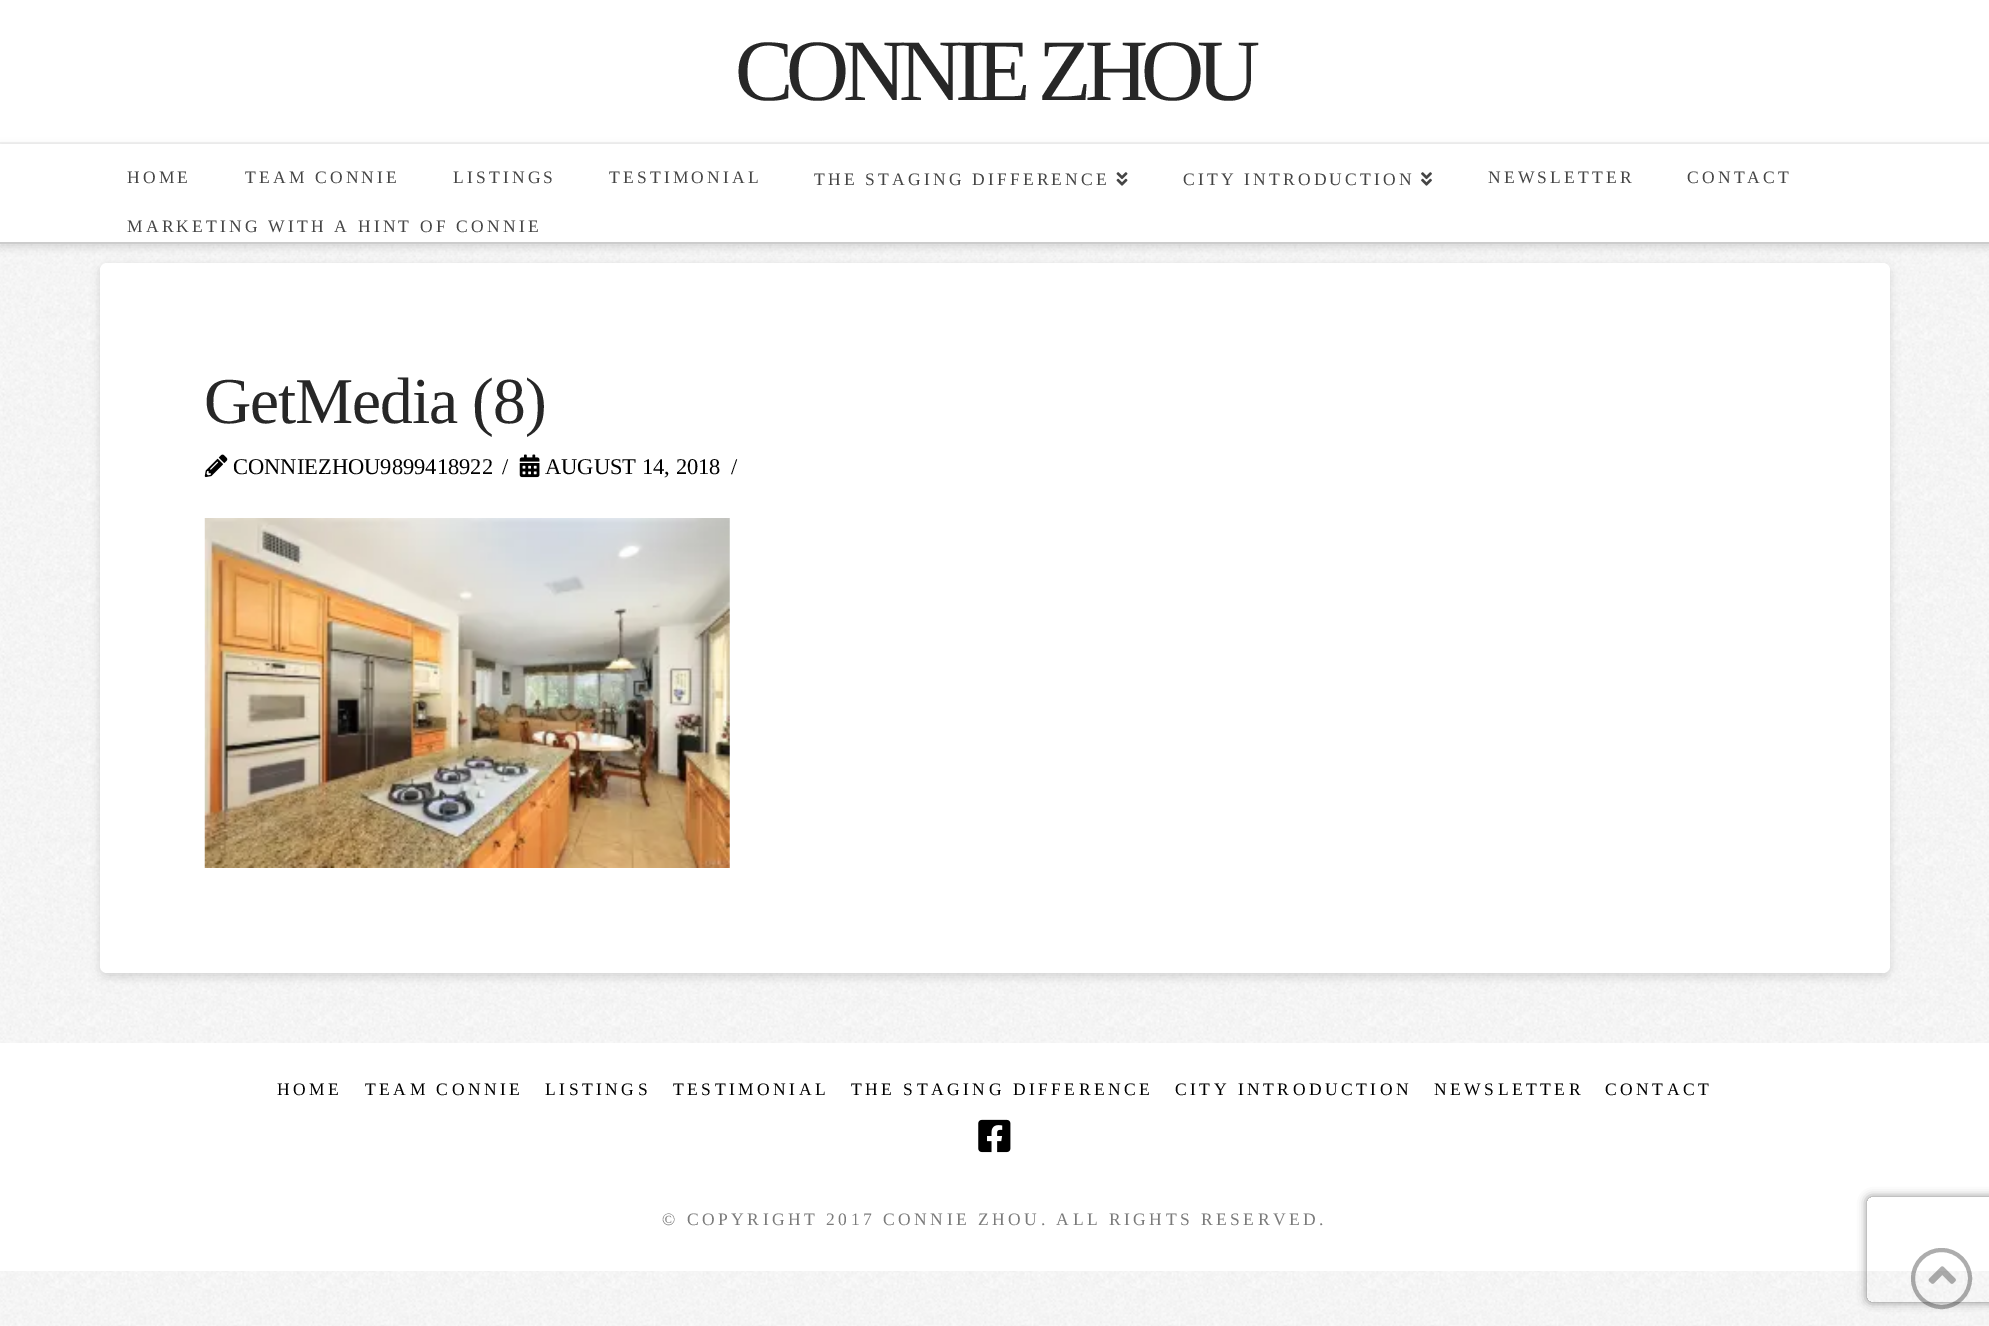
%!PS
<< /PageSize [1989 1326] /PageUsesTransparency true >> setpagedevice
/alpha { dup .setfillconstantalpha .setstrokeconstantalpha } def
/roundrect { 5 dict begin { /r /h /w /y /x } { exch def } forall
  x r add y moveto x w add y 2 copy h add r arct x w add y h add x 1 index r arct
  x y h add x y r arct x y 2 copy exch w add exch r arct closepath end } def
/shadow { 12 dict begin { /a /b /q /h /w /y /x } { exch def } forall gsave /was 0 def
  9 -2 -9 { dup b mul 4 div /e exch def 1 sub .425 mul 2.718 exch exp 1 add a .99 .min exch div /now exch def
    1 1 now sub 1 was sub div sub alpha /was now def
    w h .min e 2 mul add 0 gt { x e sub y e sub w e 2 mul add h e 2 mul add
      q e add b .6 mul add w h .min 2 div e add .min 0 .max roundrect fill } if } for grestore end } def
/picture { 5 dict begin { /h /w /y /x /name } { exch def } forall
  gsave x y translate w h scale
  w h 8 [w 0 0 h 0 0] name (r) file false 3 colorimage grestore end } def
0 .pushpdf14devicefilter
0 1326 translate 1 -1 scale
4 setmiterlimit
1 setgray
0 0 1989 1326 rectfill
(img1.rgb) 0 244 1989 1082 picture
0.949 setgray
0 142 1989 2 rectfill
/LiberationSerif-Regular [87.5 0 0 -87.5 0 0] selectfont
0.153 setgray
735 100 moveto -7 0 (CONNIE ZHOU) ashow
0 setgray
0 147 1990 100 0 4.5 0.13 shadow
1 setgray
0 144 1989 98 rectfill
0.8 setgray
0 242 1989 2 rectfill
/LiberationSerif-Regular [17.5 0 0 -17.5 0 0] selectfont
0.271 setgray
127 183 moveto 3.2 0 (HOME) ashow
245 183 moveto 3.2 0 (TEAM CONNIE) ashow
453 183 moveto 3.2 0 (LISTINGS) ashow
609 183 moveto 3.2 0 (TESTIMONIAL) ashow
814 185 moveto 3.2 0 (THE STAGING DIFFERENCE) ashow
(img2.rgb) 1116 172 12 14 picture
1183 185 moveto 3.2 0 (CITY INTRODUCTION) ashow
(img3.rgb) 1421 172 11 14 picture
1488 183 moveto 3.2 0 (NEWSLETTER) ashow
1687 183 moveto 3.2 0 (CONTACT) ashow
127 232 moveto 3.2 0 (MARKETING WITH A HINT OF CONNIE) ashow
0 setgray
100 266 1790 711 7 4.5 0.13 shadow
1 setgray
100 263 1790 710 7 roundrect fill
/LiberationSerif-Regular [65.5 0 0 -65.5 0 0] selectfont
0.153 setgray
204 423 moveto -1.1 0 (GetMedia \(8\)) ashow
(img4.rgb) 204 454 24 24 picture
/LiberationSerif-Regular [22.5 0 0 -22.5 0 0] selectfont
0 setgray
233 474 moveto (CONNIEZHOU9899418922) show
502 474 moveto (/) show
(img5.rgb) 519 454 21 24 picture
545 474 moveto (AUGUST 14, 2018) show
731 474 moveto (/) show
(img6.rgb) 204 518 526 350 picture
1 setgray
0 1043 1989 228 rectfill
/LiberationSerif-Regular [17.5 0 0 -17.5 0 0] selectfont
0 setgray
277 1095 moveto 3.5 0 (HOME) ashow
365 1095 moveto 3.5 0 (TEAM CONNIE) ashow
545 1095 moveto 3.5 0 (LISTINGS) ashow
673 1095 moveto 3.5 0 (TESTIMONIAL) ashow
851 1095 moveto 3.5 0 (THE STAGING DIFFERENCE) ashow
1175 1095 moveto 3.5 0 (CITY INTRODUCTION) ashow
1434 1095 moveto 3.5 0 (NEWSLETTER) ashow
1605 1095 moveto 3.5 0 (CONTACT) ashow
(img7.rgb) 978 1119 33 34 picture
0.478 setgray
662 1225 moveto 3.5 0 (© COPYRIGHT 2017 CONNIE ZHOU. ALL RIGHTS RESERVED.) ashow
gsave
newpath 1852 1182 moveto 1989 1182 lineto 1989 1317 lineto 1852 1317 lineto closepath 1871 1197 moveto 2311 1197 lineto 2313 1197 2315 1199 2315 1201 curveto 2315 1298 lineto 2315 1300 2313 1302 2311 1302 curveto 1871 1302 lineto 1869 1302 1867 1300 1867 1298 curveto 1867 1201 lineto 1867 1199 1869 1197 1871 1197 curveto closepath eoclip newpath
0.502 setgray
1867 1197 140 105 4 4.5 1 shadow
grestore
0.38 alpha
0.153 setgray
4 setlinewidth
newpath 1941.5 1278.5 28.5 0 360 arc closepath stroke
1 alpha
(img8.rgb) 1928 1266 28 18 picture
.poppdf14devicefilter showpage
